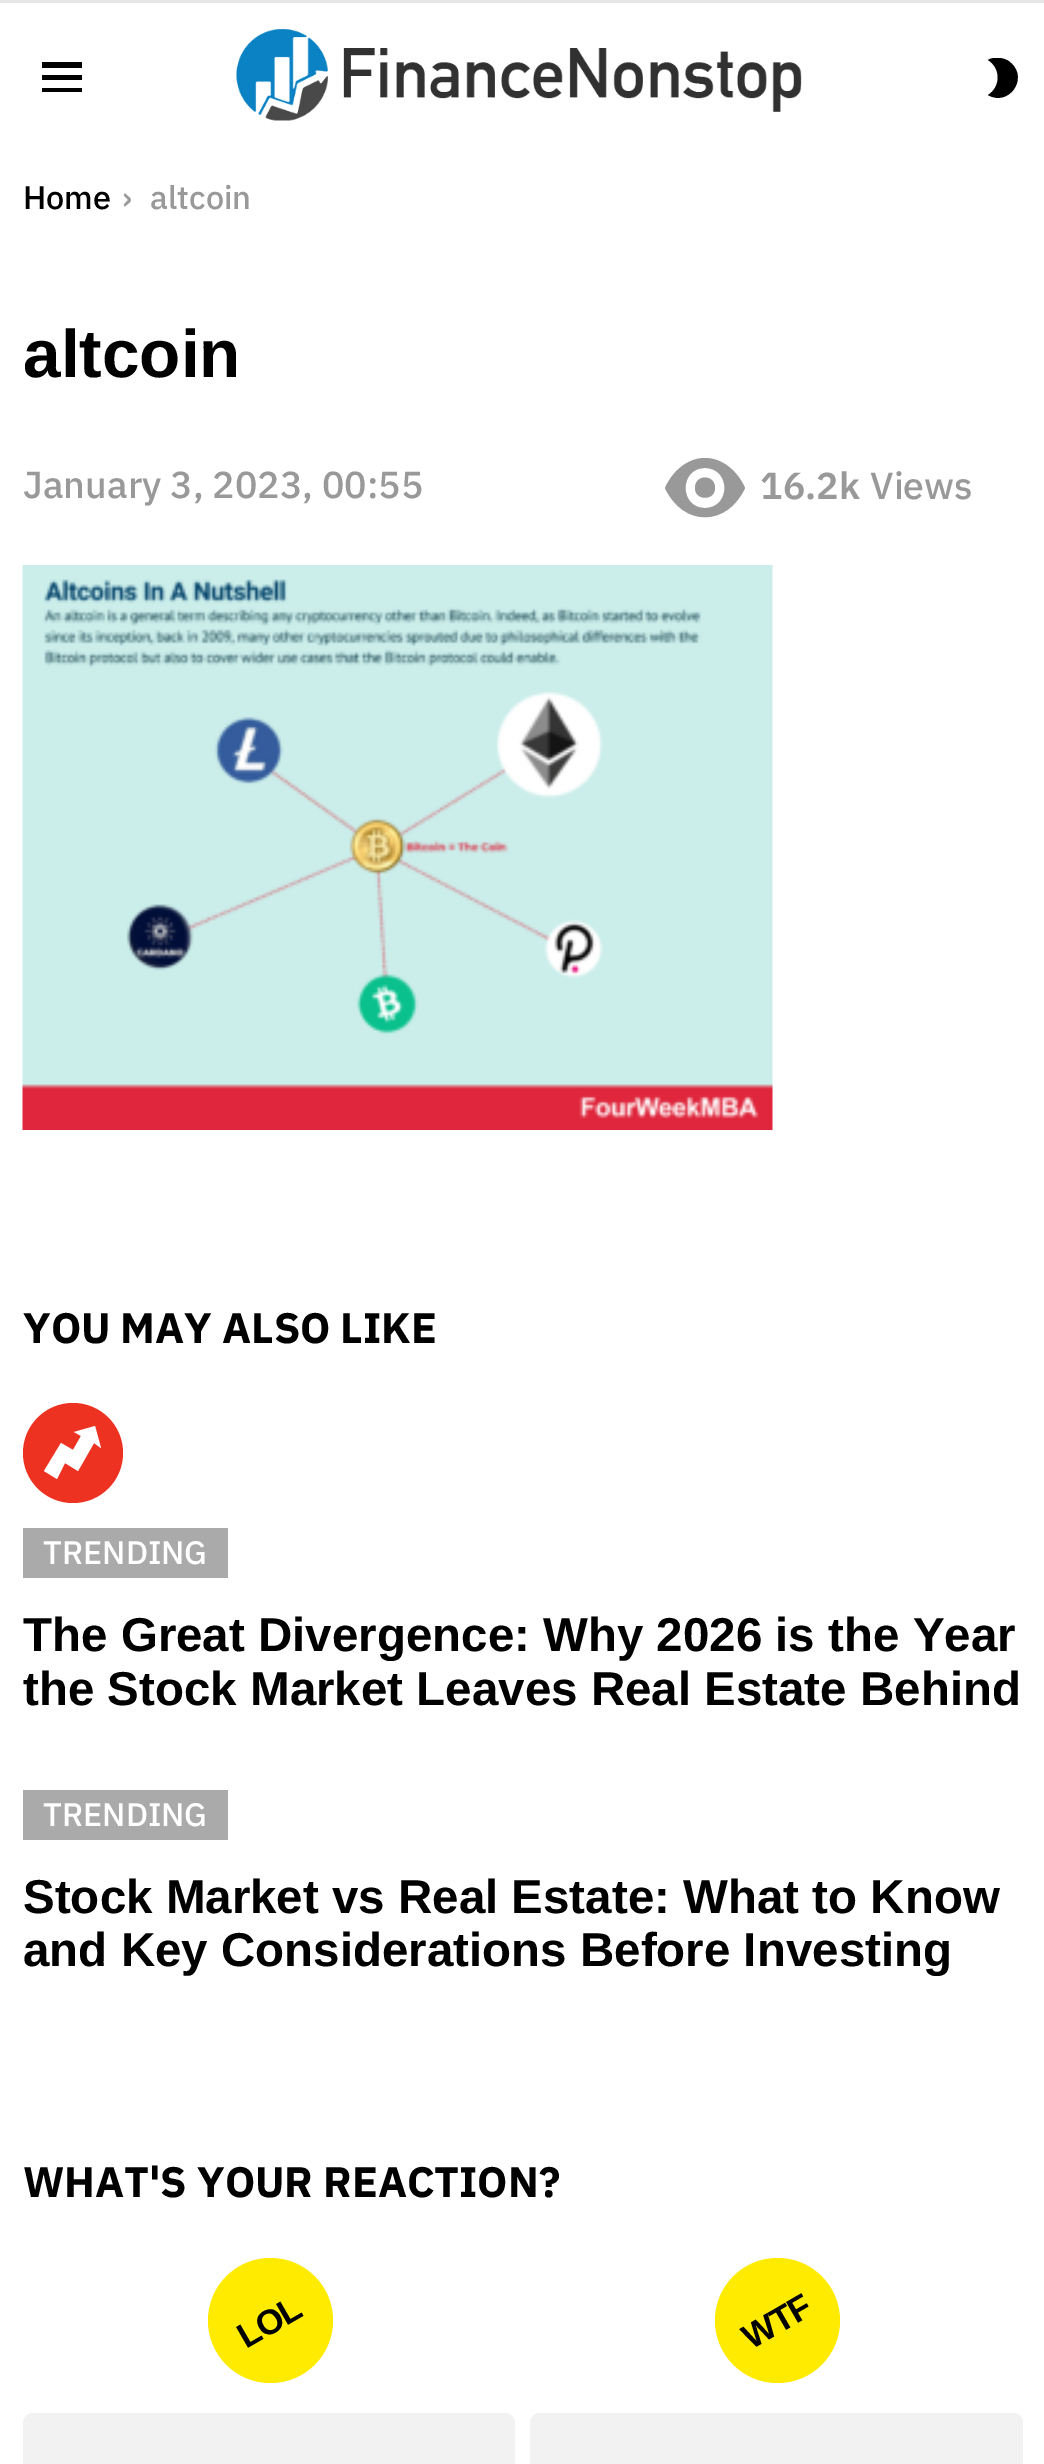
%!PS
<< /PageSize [1044 2464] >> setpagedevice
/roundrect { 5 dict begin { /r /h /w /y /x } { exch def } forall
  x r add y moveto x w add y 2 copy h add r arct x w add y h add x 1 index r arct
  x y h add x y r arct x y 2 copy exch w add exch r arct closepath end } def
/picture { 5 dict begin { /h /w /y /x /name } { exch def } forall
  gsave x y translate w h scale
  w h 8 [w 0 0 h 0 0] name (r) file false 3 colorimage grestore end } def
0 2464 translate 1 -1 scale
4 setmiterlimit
1 setgray
0 0 1044 2464 rectfill
0.902 setgray
0 0 1044 3 rectfill
0 setgray
newpath 42 62 moveto 82 62 lineto 82 68 lineto 42 68 lineto closepath 42 75 moveto 82 75 lineto 82 80 lineto 42 80 lineto closepath 42 88 moveto 82 88 lineto 82 92 lineto 42 92 lineto closepath fill
(img1.rgb) 236 29 566 92 picture
newpath 998 58 moveto 994 58 991 58 988 60 curveto 1001 68 1001 87 988 95 curveto 1008 107 1029 79 1011 63 curveto 1007 59 1002 58 998 58 curveto closepath fill
/IBMPlexSans-Medium [32.5 0 0 -32.5 0 0] selectfont
23 209 moveto (Home) show
0.6 setgray
122 209 moveto (›) show
150 209 moveto (altcoin) show
/LiberationSans-Bold [67.5 0 0 -67.5 0 0] selectfont
0 setgray
23 377 moveto (altcoin) show
/IBMPlexSans-Medium [37.5 0 0 -37.5 0 0] selectfont
0.6 setgray
23 498 moveto (January 3, 2023, 00:55) show
newpath 705 458 moveto 687 458 672 472 665 488 curveto 683 527 727 527 745 488 curveto 738 472 723 458 705 458 curveto closepath 705 508 moveto 679 508 679 468 705 468 curveto 731 468 731 508 705 508 curveto closepath 695 488 moveto 695 501 715 501 715 488 curveto 715 474 695 474 695 488 curveto closepath fill
/IBMPlexSans-SemiBold [37.5 0 0 -37.5 0 0] selectfont
760 499 moveto (16.2k) show
/IBMPlexSans-Medium [37.5 0 0 -37.5 0 0] selectfont
870 499 moveto (Views) show
(img2.rgb) 22 565 751 565 picture
/IBMPlexSans-Bold [42.5 0 0 -42.5 0 0] selectfont
0 setgray
23 1343 moveto (YOU MAY ALSO LIKE) show
0.933 0.196 0.129 setrgbcolor
newpath 73 1453 50 0 360 arc closepath fill
1 setgray
newpath 73 1450 moveto 81 1436 lineto 74 1432 lineto 95 1426 lineto 101 1448 lineto 94 1443 lineto 78 1471 lineto 65 1463 lineto 57 1479 lineto 44 1471 lineto 61 1443 lineto closepath fill
0.667 setgray
23 1528 205 50 rectfill
/IBMPlexSans-Medium [32.5 0 0 -32.5 0 0] selectfont
1 setgray
43 1564 moveto (TRENDING) show
/LiberationSans-Bold [47.5 0 0 -47.5 0 0] selectfont
0 setgray
23 1651 moveto (The Great Divergence: Why 2026 is the Year) show
23 1705 moveto (the Stock Market Leaves Real Estate Behind) show
0.667 setgray
23 1790 205 50 rectfill
/IBMPlexSans-Medium [32.5 0 0 -32.5 0 0] selectfont
1 setgray
43 1826 moveto (TRENDING) show
/LiberationSans-Bold [47.5 0 0 -47.5 0 0] selectfont
0 setgray
23 1913 moveto (Stock Market vs Real Estate: What to Know) show
23 1966 moveto (and Key Considerations Before Investing) show
/IBMPlexSans-Bold [42.5 0 0 -42.5 0 0] selectfont
23 2197 moveto (WHAT'S YOUR REACTION?) show
0.996 0.922 0 setrgbcolor
newpath 270.5 2320.5 62.5 0 360 arc closepath fill
/LiberationSans-Bold [35 0 0 -35 0 0] selectfont
0 setgray
gsave 246 2349 translate -30 rotate 0 0 moveto -1 0 (LOL) ashow grestore
0.949 setgray
23 2413 492 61 10 roundrect fill
0.996 0.922 0 setrgbcolor
newpath 777.5 2320.5 62.5 0 360 arc closepath fill
0 setgray
gsave 751 2350 translate -30 rotate 0 0 moveto -1 0 (WTF) ashow grestore
0.949 setgray
530 2413 493 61 10 roundrect fill
showpage
